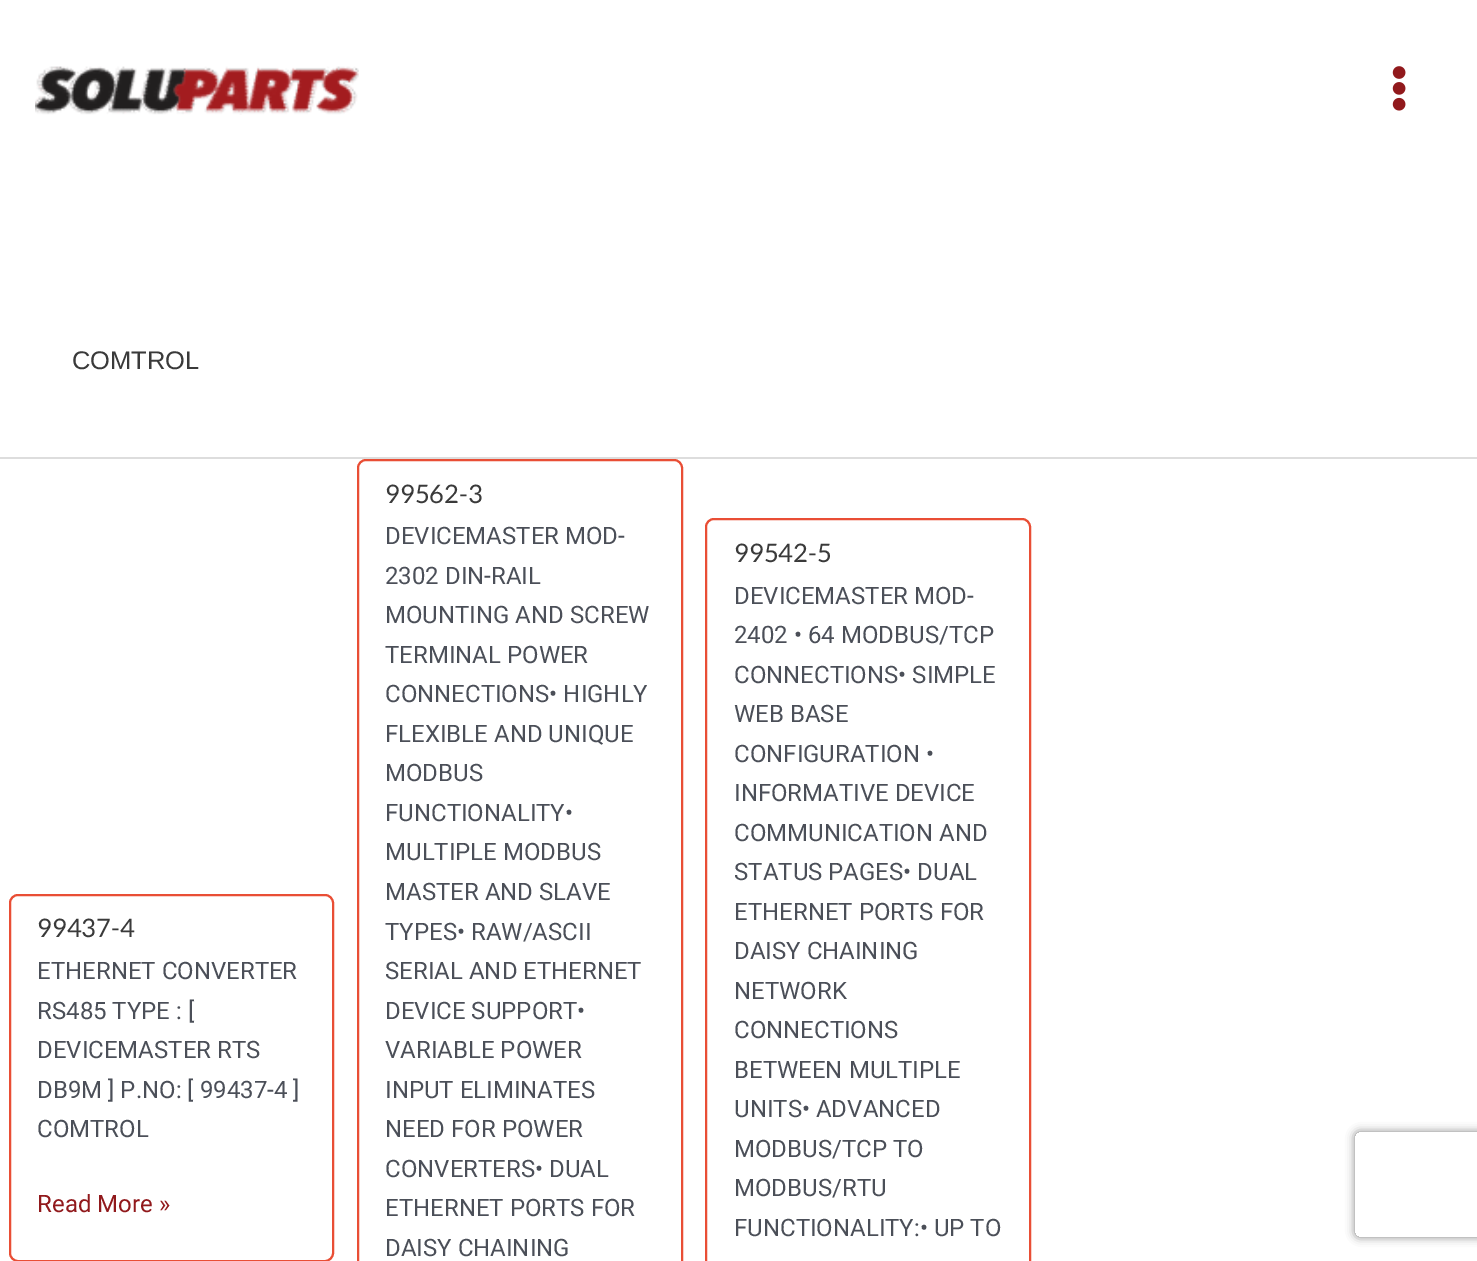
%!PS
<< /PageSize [1477 1261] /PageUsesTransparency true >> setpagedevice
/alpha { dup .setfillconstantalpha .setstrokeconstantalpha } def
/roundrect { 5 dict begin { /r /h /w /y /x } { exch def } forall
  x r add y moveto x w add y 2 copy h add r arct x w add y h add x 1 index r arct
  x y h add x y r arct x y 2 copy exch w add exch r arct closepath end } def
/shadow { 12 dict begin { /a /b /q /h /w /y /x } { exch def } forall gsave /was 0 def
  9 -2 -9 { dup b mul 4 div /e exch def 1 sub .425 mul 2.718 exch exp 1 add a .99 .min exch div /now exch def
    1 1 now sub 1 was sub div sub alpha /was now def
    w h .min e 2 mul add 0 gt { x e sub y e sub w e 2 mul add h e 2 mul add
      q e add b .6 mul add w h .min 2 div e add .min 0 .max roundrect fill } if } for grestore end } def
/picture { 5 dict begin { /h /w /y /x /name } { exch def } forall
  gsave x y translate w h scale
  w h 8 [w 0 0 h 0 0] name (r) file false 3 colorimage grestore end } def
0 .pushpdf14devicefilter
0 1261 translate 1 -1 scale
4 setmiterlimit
1 setgray
0 0 1477 1261 rectfill
(img1.rgb) 35 66 324 49 picture
(img2.rgb) 1392 66 14 45 picture
0.867 setgray
0 457 1477 2 rectfill
/LiberationSans-Regular [25.5 0 0 -25.5 0 0] selectfont
0.227 setgray
72 369 moveto (COMTROL) show
0.914 0.306 0.208 setrgbcolor
2 setlinewidth
10 895 323 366 8 roundrect stroke
/Lato-Regular [25.5 0 0 -25.5 0 0] selectfont
0.227 setgray
37 937 moveto (99437-4) show
/Roboto-Regular [24 0 0 -24 0 0] selectfont
0.294 0.31 0.345 setrgbcolor
37 979 moveto (ETHERNET CONVERTER) show
37 1019 moveto (RS485 TYPE : [) show
37 1058 moveto (DEVICEMASTER RTS) show
37 1098 moveto (DB9M ] P.NO: [ 99437-4 ]) show
37 1137 moveto (COMTROL) show
0.569 0.098 0.11 setrgbcolor
37 1212 moveto (Read More ») show
0.914 0.306 0.208 setrgbcolor
358 460 324 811 8 roundrect stroke
/Lato-Regular [25.5 0 0 -25.5 0 0] selectfont
0.227 setgray
385 503 moveto (99562-3) show
/Roboto-Regular [24 0 0 -24 0 0] selectfont
0.294 0.31 0.345 setrgbcolor
385 544 moveto (DEVICEMASTER MOD-) show
385 584 moveto (2302 DIN-RAIL) show
385 623 moveto (MOUNTING AND SCREW) show
385 663 moveto (TERMINAL POWER) show
385 702 moveto (CONNECTIONS• HIGHLY) show
385 742 moveto (FLEXIBLE AND UNIQUE) show
385 781 moveto (MODBUS) show
385 821 moveto (FUNCTIONALITY•) show
385 860 moveto (MULTIPLE MODBUS) show
385 900 moveto (MASTER AND SLAVE) show
385 940 moveto (TYPES• RAW/ASCII) show
385 979 moveto (SERIAL AND ETHERNET) show
385 1019 moveto (DEVICE SUPPORT•) show
385 1058 moveto (VARIABLE POWER) show
385 1098 moveto (INPUT ELIMINATES) show
385 1137 moveto (NEED FOR POWER) show
385 1177 moveto (CONVERTERS• DUAL) show
385 1216 moveto (ETHERNET PORTS FOR) show
385 1256 moveto (DAISY CHAINING) show
0.914 0.306 0.208 setrgbcolor
706 519 324 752 8 roundrect stroke
/Lato-Regular [25.5 0 0 -25.5 0 0] selectfont
0.227 setgray
734 562 moveto (99542-5) show
/Roboto-Regular [24 0 0 -24 0 0] selectfont
0.294 0.31 0.345 setrgbcolor
734 604 moveto (DEVICEMASTER MOD-) show
734 643 moveto (2402 • 64 MODBUS/TCP) show
734 683 moveto (CONNECTIONS• SIMPLE) show
734 722 moveto (WEB BASE) show
734 762 moveto (CONFIGURATION •) show
734 801 moveto (INFORMATIVE DEVICE) show
734 841 moveto (COMMUNICATION AND) show
734 880 moveto (STATUS PAGES• DUAL) show
734 920 moveto (ETHERNET PORTS FOR) show
734 959 moveto (DAISY CHAINING) show
734 999 moveto (NETWORK) show
734 1038 moveto (CONNECTIONS) show
734 1078 moveto (BETWEEN MULTIPLE) show
734 1117 moveto (UNITS• ADVANCED) show
734 1157 moveto (MODBUS/TCP TO) show
734 1196 moveto (MODBUS/RTU) show
734 1236 moveto (FUNCTIONALITY:• UP TO) show
gsave
newpath 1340 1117 moveto 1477 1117 lineto 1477 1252 lineto 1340 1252 lineto closepath 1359 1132 moveto 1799 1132 lineto 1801 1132 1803 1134 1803 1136 curveto 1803 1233 lineto 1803 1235 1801 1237 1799 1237 curveto 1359 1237 lineto 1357 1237 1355 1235 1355 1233 curveto 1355 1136 lineto 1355 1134 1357 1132 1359 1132 curveto closepath eoclip newpath
0.502 setgray
1355 1132 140 105 4 4.5 1 shadow
grestore
.poppdf14devicefilter showpage
